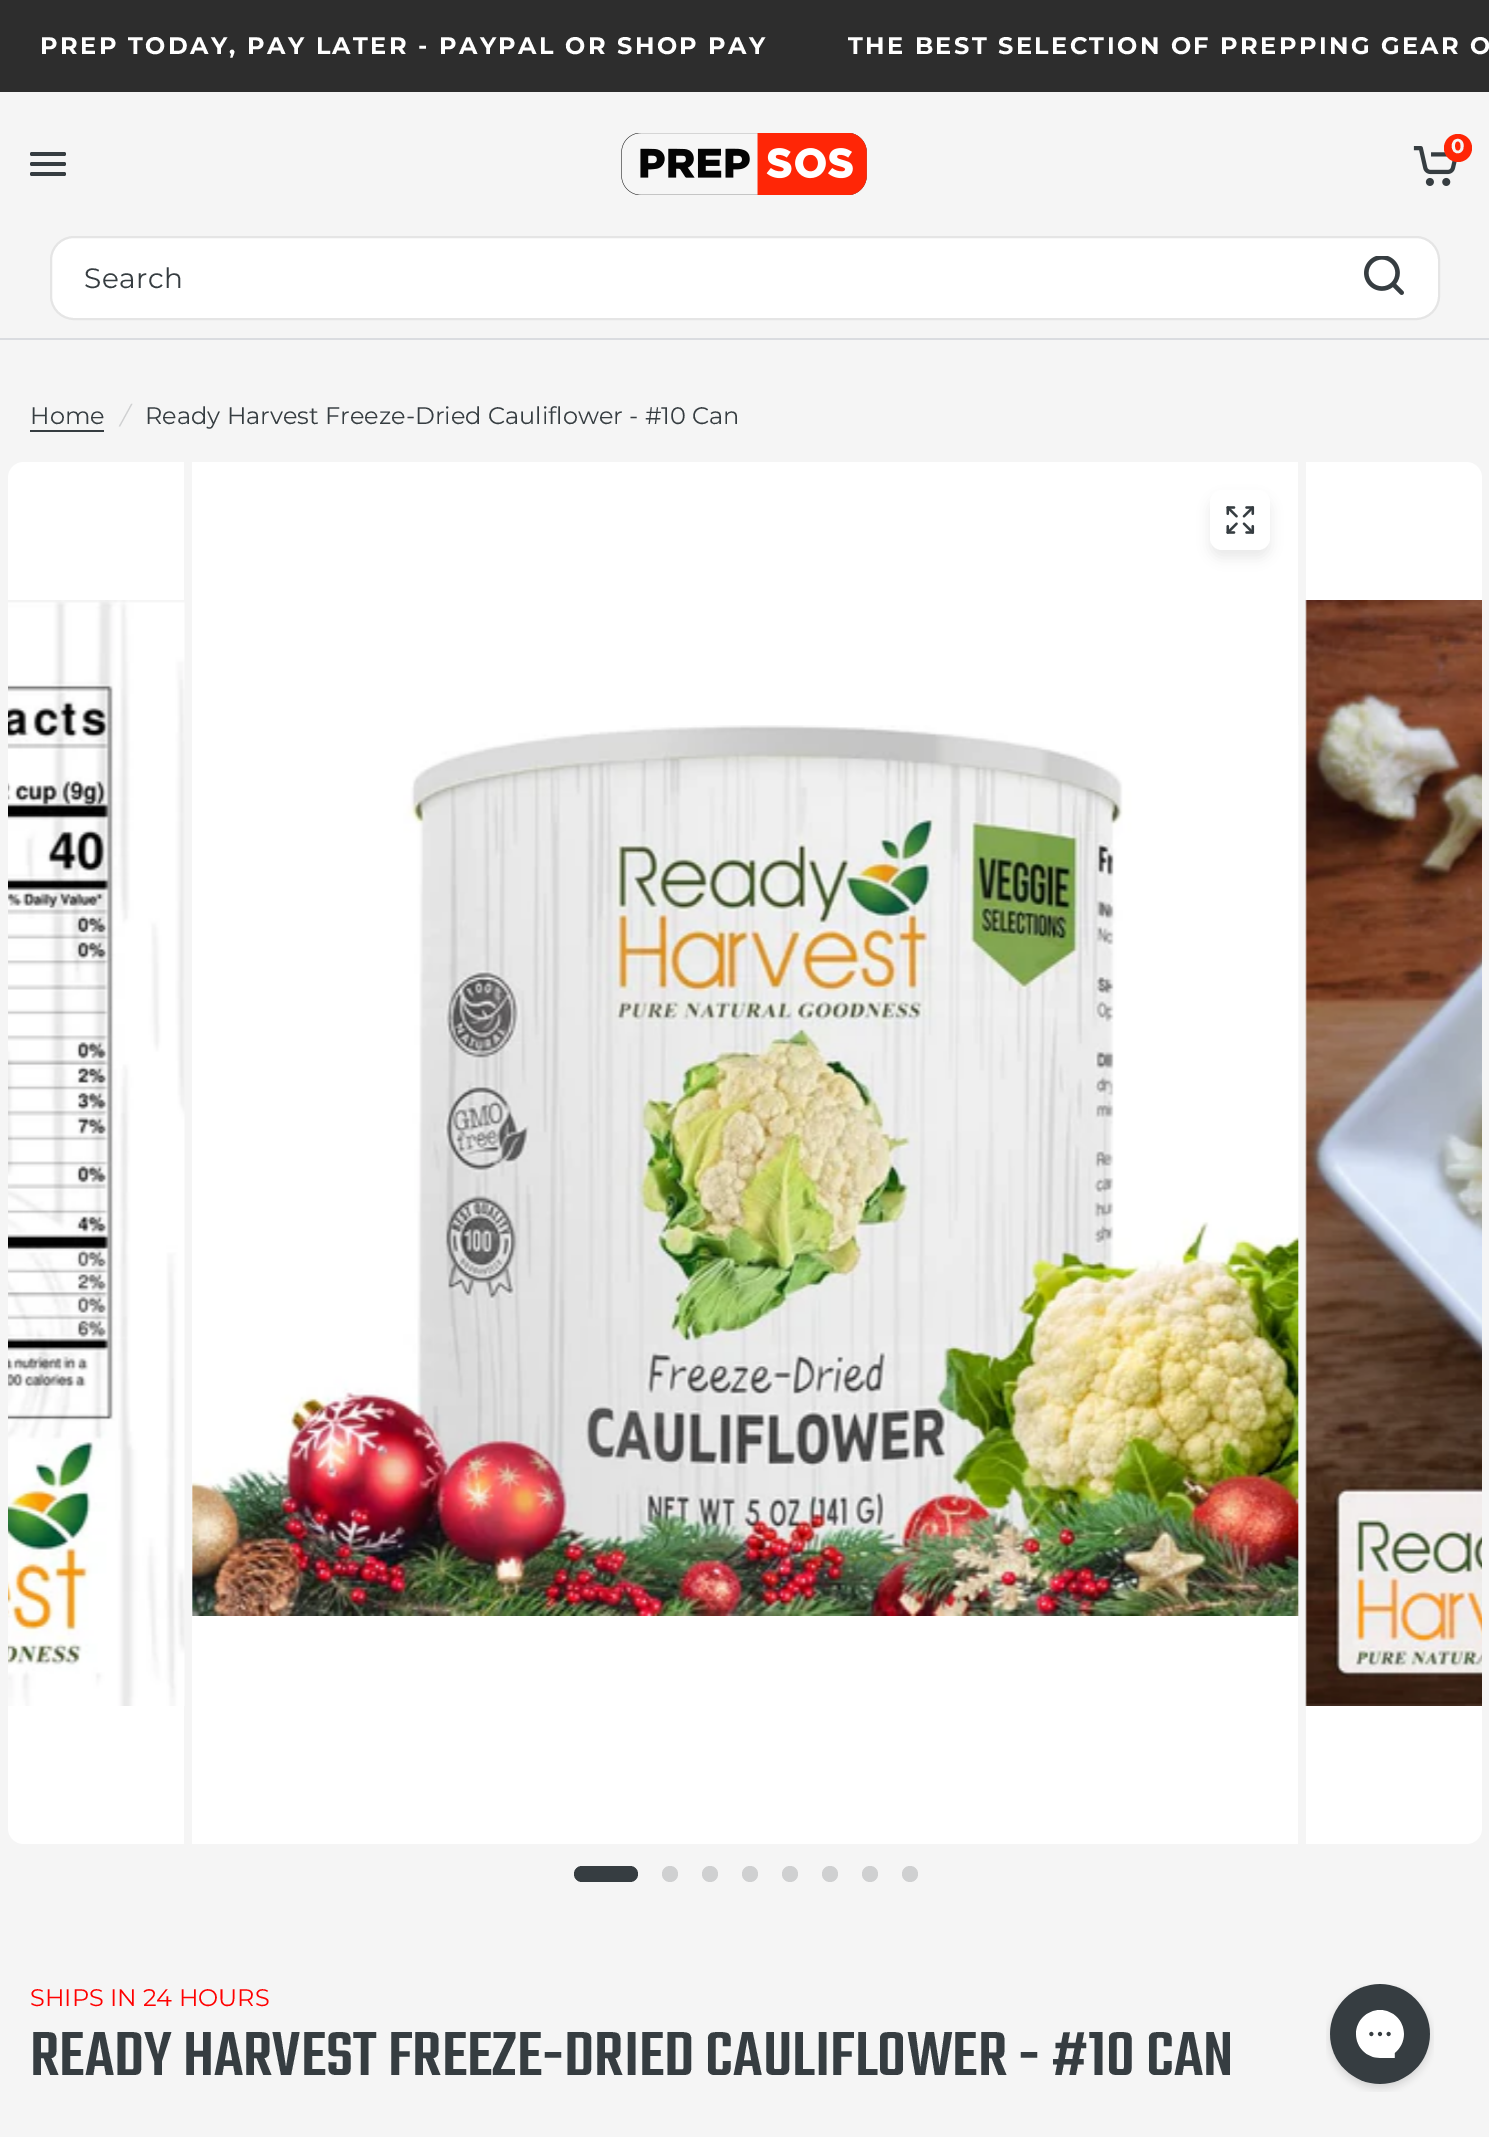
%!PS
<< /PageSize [1489 2137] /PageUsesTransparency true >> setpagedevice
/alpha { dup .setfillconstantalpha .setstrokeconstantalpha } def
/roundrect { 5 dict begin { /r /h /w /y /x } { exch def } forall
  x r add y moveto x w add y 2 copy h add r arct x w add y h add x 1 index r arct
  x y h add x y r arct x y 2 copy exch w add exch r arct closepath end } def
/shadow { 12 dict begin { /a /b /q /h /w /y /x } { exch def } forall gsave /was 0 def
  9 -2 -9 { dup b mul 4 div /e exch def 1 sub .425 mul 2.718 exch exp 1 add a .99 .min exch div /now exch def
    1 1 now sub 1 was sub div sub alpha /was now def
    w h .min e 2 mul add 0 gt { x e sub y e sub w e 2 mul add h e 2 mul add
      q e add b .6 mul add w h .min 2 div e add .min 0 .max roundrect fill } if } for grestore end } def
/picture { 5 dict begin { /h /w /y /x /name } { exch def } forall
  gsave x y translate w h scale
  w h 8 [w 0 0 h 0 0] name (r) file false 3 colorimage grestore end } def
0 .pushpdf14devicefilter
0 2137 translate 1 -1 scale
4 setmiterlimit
0.961 setgray
0 0 1489 2137 rectfill
0.176 setgray
0 0 1489 92 rectfill
/Montserrat-Bold [24 0 0 -24 0 0] selectfont
1 setgray
40 54 moveto 2.4 0 (PREP TODAY, PAY LATER - PAYPAL OR SHOP PAY) ashow
848 54 moveto 2.4 0 (THE BEST SELECTION OF PREPPING GEAR O) ashow
(img1.rgb) 621 133 246 62 picture
(img2.rgb) 1413 146 44 40 picture
1 0.149 0.024 setrgbcolor
newpath 1458 148 14 0 360 arc closepath fill
/Montserrat-Bold [20 0 0 -20 0 0] selectfont
0.961 setgray
1451 153 moveto (0) show
0.212 0.239 0.255 setrgbcolor
30 152 36 4 2 roundrect fill
30 162 36 4 2 roundrect fill
30 172 36 4 2 roundrect fill
0.855 0.863 0.878 setrgbcolor
0 338 1489 2 rectfill
1 setgray
51 237 1388 82 23 roundrect gsave fill grestore
0.898 setgray
2 setlinewidth
stroke
/Montserrat-Regular [28 0 0 -28 0 0] selectfont
0.212 0.239 0.255 setrgbcolor
84 288 moveto 0.5 0 (Search) ashow
(img3.rgb) 1364 256 40 39 picture
/Montserrat-Regular [24 0 0 -24 0 0] selectfont
30 424 moveto (Home) show
30 430 74 2 rectfill
/Montserrat-Italic [24 0 0 -24 0 0] selectfont
0.812 0.816 0.82 setrgbcolor
121 424 moveto (/) show
/Montserrat-Regular [24 0 0 -24 0 0] selectfont
0.212 0.239 0.255 setrgbcolor
145 424 moveto (Ready Harvest Freeze-Dried Cauliflower - #10 Can) show
1 setgray
newpath 24 462 moveto 184 462 lineto 184 1844 lineto 24 1844 lineto 15 1844 8 1837 8 1828 curveto 8 478 lineto 8 469 15 462 24 462 curveto closepath fill
(img4.rgb) 8 600 177 1106 picture
192 462 1106 1382 rectfill
0 setgray
1210 498 60 60 12 6 0.08 shadow
1 setgray
1210 490 60 60 12 roundrect fill
(img5.rgb) 1226 506 29 28 picture
(img6.rgb) 192 725 1107 891 picture
newpath 1306 462 moveto 1466 462 lineto 1475 462 1482 469 1482 478 curveto 1482 1828 lineto 1482 1837 1475 1844 1466 1844 curveto 1306 1844 lineto closepath fill
(img7.rgb) 1305 600 177 1106 picture
0.212 0.239 0.255 setrgbcolor
574 1866 64 16 8 roundrect fill
0.812 0.816 0.82 setrgbcolor
newpath 670 1874 8 0 360 arc closepath fill
newpath 710 1874 8 0 360 arc closepath fill
newpath 750 1874 8 0 360 arc closepath fill
newpath 790 1874 8 0 360 arc closepath fill
newpath 830 1874 8 0 360 arc closepath fill
newpath 870 1874 8 0 360 arc closepath fill
newpath 910 1874 8 0 360 arc closepath fill
1 0 0 setrgbcolor
30 2006 moveto (SHIPS IN 24 HOURS) show
/Teko-Medium [68 0 0 -68 0 0] selectfont
0.212 0.239 0.255 setrgbcolor
30 2075 moveto (READY HARVEST FREEZE-DRIED CAULIFLOWER - #10 CAN) show
(img8.rgb) 1326 1984 108 108 picture
.poppdf14devicefilter showpage
